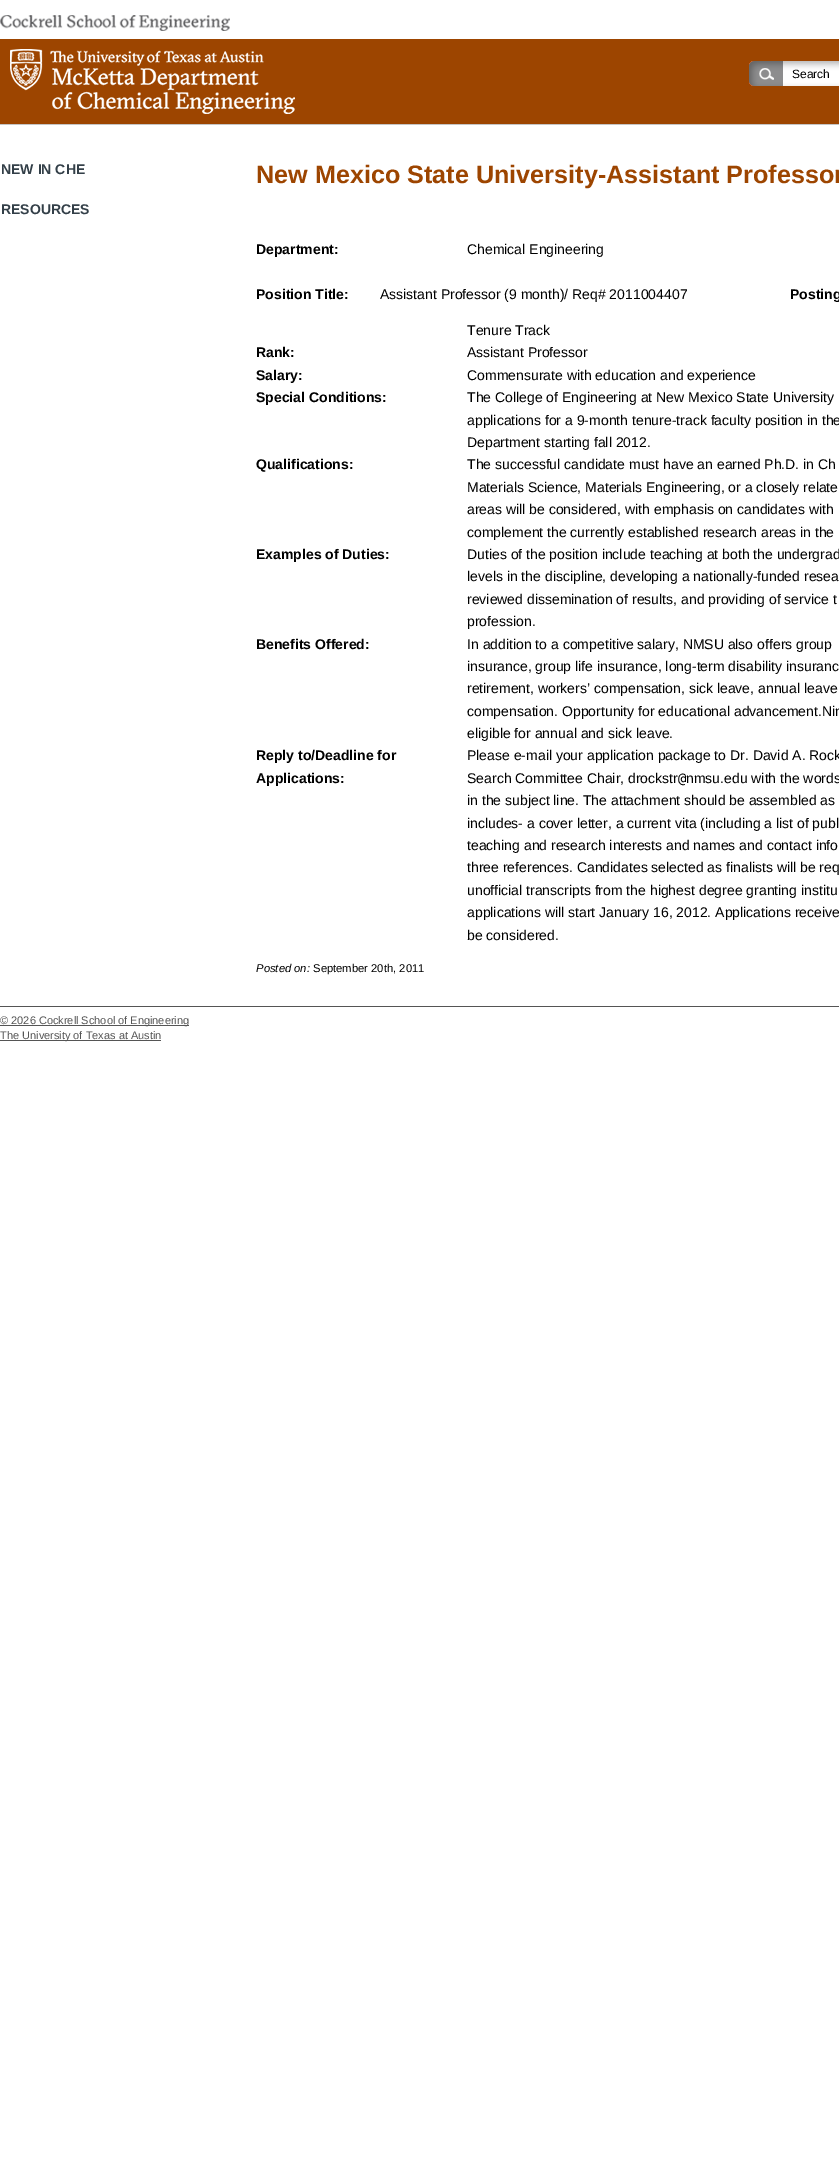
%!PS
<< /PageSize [839 2176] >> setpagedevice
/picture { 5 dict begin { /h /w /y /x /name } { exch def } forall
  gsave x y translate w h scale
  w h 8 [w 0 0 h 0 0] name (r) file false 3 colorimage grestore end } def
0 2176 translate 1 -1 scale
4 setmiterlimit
1 setgray
0 0 839 2176 rectfill
(img1.rgb) 0 15 230 16 picture
0.616 0.271 0 setrgbcolor
0 39 839 85 rectfill
(img2.rgb) 10 49 285 65 picture
(img3.rgb) 749 61 90 25 picture
/LiberationSans-Regular [12 0 0 -12 0 0] selectfont
0 setgray
792 78 moveto (Search) show
0.769 setgray
0 124 839 1 rectfill
/LiberationSans-Bold [14 0 0 -14 0 0] selectfont
0.2 0.247 0.282 setrgbcolor
1 174 moveto (NEW IN CHE) show
1 214 moveto (RESOURCES) show
/LiberationSans-Bold [25.2 0 0 -25.2 0 0] selectfont
0.616 0.271 0 setrgbcolor
256 183 moveto (New Mexico State University-Assistant Professor) show
/LiberationSans-Bold [14 0 0 -14 0 0] selectfont
0 setgray
256 254 moveto (Department:) show
/LiberationSans-Regular [14 0 0 -14 0 0] selectfont
467 254 moveto (Chemical Engineering) show
/LiberationSans-Bold [14 0 0 -14 0 0] selectfont
256 299 moveto (Position Title:) show
/LiberationSans-Regular [14 0 0 -14 0 0] selectfont
380 299 moveto (Assistant Professor \(9 month\)/ Req# 2011004407) show
/LiberationSans-Bold [14 0 0 -14 0 0] selectfont
790 299 moveto (Posting) show
/LiberationSans-Regular [14 0 0 -14 0 0] selectfont
467 335 moveto (Tenure Track) show
/LiberationSans-Bold [14 0 0 -14 0 0] selectfont
256 357 moveto (Rank:) show
/LiberationSans-Regular [14 0 0 -14 0 0] selectfont
467 357 moveto (Assistant Professor) show
/LiberationSans-Bold [14 0 0 -14 0 0] selectfont
256 380 moveto (Salary:) show
/LiberationSans-Regular [14 0 0 -14 0 0] selectfont
467 380 moveto (Commensurate with education and experience) show
/LiberationSans-Bold [14 0 0 -14 0 0] selectfont
256 402 moveto (Special Conditions:) show
/LiberationSans-Regular [14 0 0 -14 0 0] selectfont
467 402 moveto (The College of Engineering at New Mexico State University) show
467 425 moveto (applications for a 9-month tenure-track faculty position in the) show
467 447 moveto (Department starting fall 2012.) show
/LiberationSans-Bold [14 0 0 -14 0 0] selectfont
256 469 moveto (Qualifications:) show
/LiberationSans-Regular [14 0 0 -14 0 0] selectfont
467 469 moveto (The successful candidate must have an earned Ph.D. in Ch) show
467 492 moveto (Materials Science, Materials Engineering, or a closely relate) show
467 514 moveto (areas will be considered, with emphasis on candidates with) show
467 537 moveto (complement the currently established research areas in the) show
/LiberationSans-Bold [14 0 0 -14 0 0] selectfont
256 559 moveto (Examples of Duties:) show
/LiberationSans-Regular [14 0 0 -14 0 0] selectfont
467 559 moveto (Duties of the position include teaching at both the undergrad) show
467 581 moveto (levels in the discipline, developing a nationally-funded resea) show
467 604 moveto (reviewed dissemination of results, and providing of service t) show
467 626 moveto (profession.) show
/LiberationSans-Bold [14 0 0 -14 0 0] selectfont
256 649 moveto (Benefits Offered:) show
/LiberationSans-Regular [14 0 0 -14 0 0] selectfont
467 649 moveto (In addition to a competitive salary, NMSU also offers group) show
467 671 moveto (insurance, group life insurance, long-term disability insuranc) show
467 693 moveto (retirement, workers’ compensation, sick leave, annual leave) show
467 716 moveto (compensation. Opportunity for educational advancement.Nin) show
467 738 moveto (eligible for annual and sick leave.) show
/LiberationSans-Bold [14 0 0 -14 0 0] selectfont
256 760 moveto (Reply to/Deadline for) show
256 783 moveto (Applications:) show
/LiberationSans-Regular [14 0 0 -14 0 0] selectfont
467 760 moveto (Please e-mail your application package to Dr. David A. Rock) show
467 783 moveto (Search Committee Chair, drockstr) show
/DejaVuSansMono-Regular [14 0 0 -14 0 0] selectfont
678 783 moveto (@) show
/LiberationSans-Regular [14 0 0 -14 0 0] selectfont
686 783 moveto (nmsu.edu with the words) show
467 805 moveto (in the subject line. The attachment should be assembled as) show
467 828 moveto (includes- a cover letter, a current vita \(including a list of publ) show
467 850 moveto (teaching and research interests and names and contact info) show
467 872 moveto (three references. Candidates selected as finalists will be req) show
467 895 moveto (unofficial transcripts from the highest degree granting institu) show
467 917 moveto (applications will start January 16, 2012. Applications receive) show
467 940 moveto (be considered.) show
/LiberationSans-Italic [11.25 0 0 -11.25 0 0] selectfont
256 972 moveto (Posted on:) show
/LiberationSans-Regular [11.25 0 0 -11.25 0 0] selectfont
313 972 moveto (September 20th, 2011) show
0.333 setgray
0 1006 839 1 rectfill
0 1025 189 1 rectfill
/LiberationSans-Regular [11 0 0 -11 0 0] selectfont
0 1024 moveto (© 2026 Cockrell School of Engineering) show
0 1040 161 1 rectfill
0 1039 moveto (The University of Texas at Austin) show
showpage
